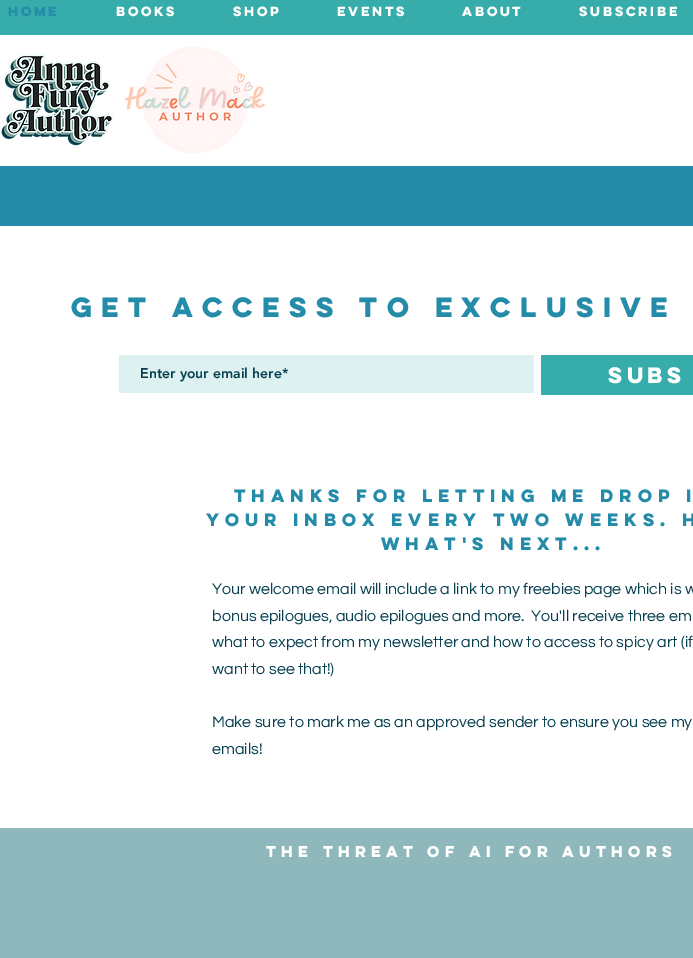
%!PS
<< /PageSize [693 958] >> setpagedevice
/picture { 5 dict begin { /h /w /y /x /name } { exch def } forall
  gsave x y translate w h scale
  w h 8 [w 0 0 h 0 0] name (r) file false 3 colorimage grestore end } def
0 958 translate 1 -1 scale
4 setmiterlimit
1 setgray
0 0 693 958 rectfill
0.216 0.678 0.671 setrgbcolor
0 0 693 35 rectfill
/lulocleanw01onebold-Bold [12 0 0 -12 0 0] selectfont
0.141 0.549 0.659 setrgbcolor
8 16 moveto (HOME) show
1 1 0.996 setrgbcolor
116 16 moveto (BOOKS) show
233 16 moveto (SHOP) show
337 16 moveto (events) show
462 16 moveto (ABOUT) show
579 16 moveto (SUBSCRIBE) show
(img1.rgb) 1 54 113 92 picture
(img2.rgb) 125 47 142 106 picture
0.141 0.549 0.659 setrgbcolor
0 166 693 60 rectfill
/lulocleanw01onebold-Bold [25 0 0 -25 0 0] selectfont
71 317 moveto 3.75 0 (get access to exclusive) ashow
0.867 0.945 0.945 setrgbcolor
119 355 415 38 rectfill
/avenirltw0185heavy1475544-Black [14 0 0 -14 0 0] selectfont
0.027 0.255 0.318 setrgbcolor
140 378 moveto (Enter your email here*) show
0.216 0.678 0.671 setrgbcolor
541 355 152 40 rectfill
/lulocleanw01onebold-Bold [20 0 0 -20 0 0] selectfont
1 1 0.996 setrgbcolor
608 383 moveto (Subs) show
/lulocleanw01onebold-Bold [16 0 0 -16 0 0] selectfont
0.141 0.549 0.659 setrgbcolor
234 502 moveto 2.4 0 (thanks for letting me drop i) ashow
206 526 moveto 2.4 0 (your inbox every two weeks. h) ashow
381 550 moveto 2.4 0 (what's next...) ashow
/Questrial-Regular [16 0 0 -16 0 0] selectfont
0.027 0.255 0.318 setrgbcolor
212 594 moveto (Your welcome email will include a link to my freebies page which is w) show
212 621 moveto (bonus epilogues, audio epilogues and more.  You'll receive three em) show
212 647 moveto (what to expect from my newsletter and how to access to spicy art \(if) show
212 674 moveto (want to see that!\)) show
212 727 moveto (Make sure to mark me as an approved sender to ensure you see my) show
212 754 moveto (emails!) show
0.557 0.722 0.733 setrgbcolor
0 828 693 130 rectfill
/lulocleanw01onebold-Bold [14 0 0 -14 0 0] selectfont
1 1 0.996 setrgbcolor
266 857 moveto 2.1 0 (the threat of AI for authors) ashow
showpage
